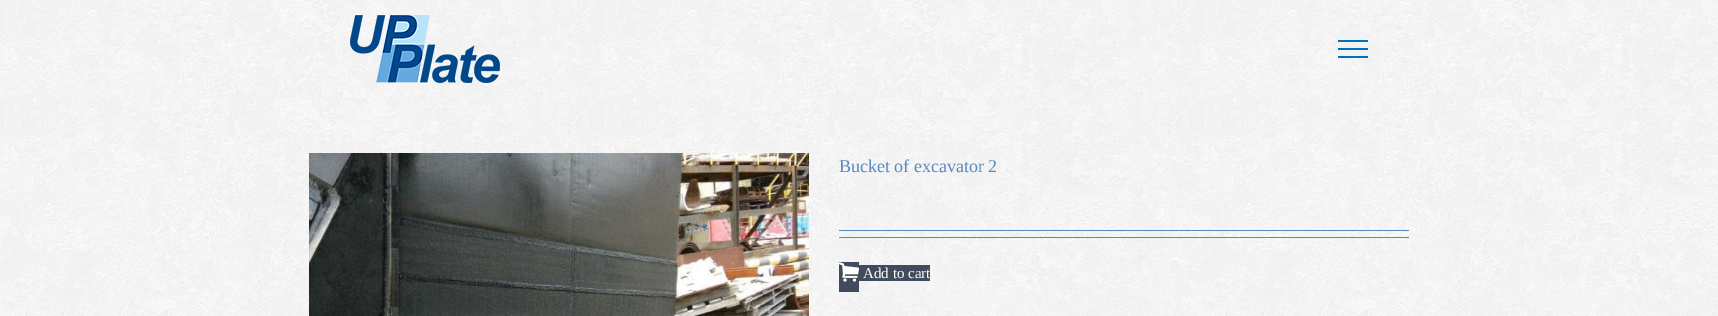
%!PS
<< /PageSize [1718 316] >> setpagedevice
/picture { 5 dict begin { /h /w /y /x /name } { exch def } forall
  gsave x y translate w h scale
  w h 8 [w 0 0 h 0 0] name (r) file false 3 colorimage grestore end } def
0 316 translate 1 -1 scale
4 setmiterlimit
1 setgray
0 0 1718 316 rectfill
(img1.rgb) 0 0 1718 98 picture
(img2.rgb) 350 15 150 68 picture
0 0.443 0.737 setrgbcolor
1338 40 30 2 rectfill
1338 48 30 2 rectfill
1338 56 30 2 rectfill
(img3.rgb) 0 98 1718 218 picture
(img4.rgb) 309 153 500 163 picture
/LiberationSerif-Regular [18 0 0 -18 0 0] selectfont
0.345 0.537 0.741 setrgbcolor
839 172 moveto (Bucket of excavator 2) show
839 230 570 1 rectfill
839 237 570 1 rectfill
0.251 0.294 0.357 setrgbcolor
839 262 20 30 rectfill
859 265 71 16 rectfill
(img5.rgb) 839 262 20 20 picture
/LiberationSerif-Regular [15 0 0 -15 0 0] selectfont
1 setgray
863 278 moveto (Add to cart) show
showpage
